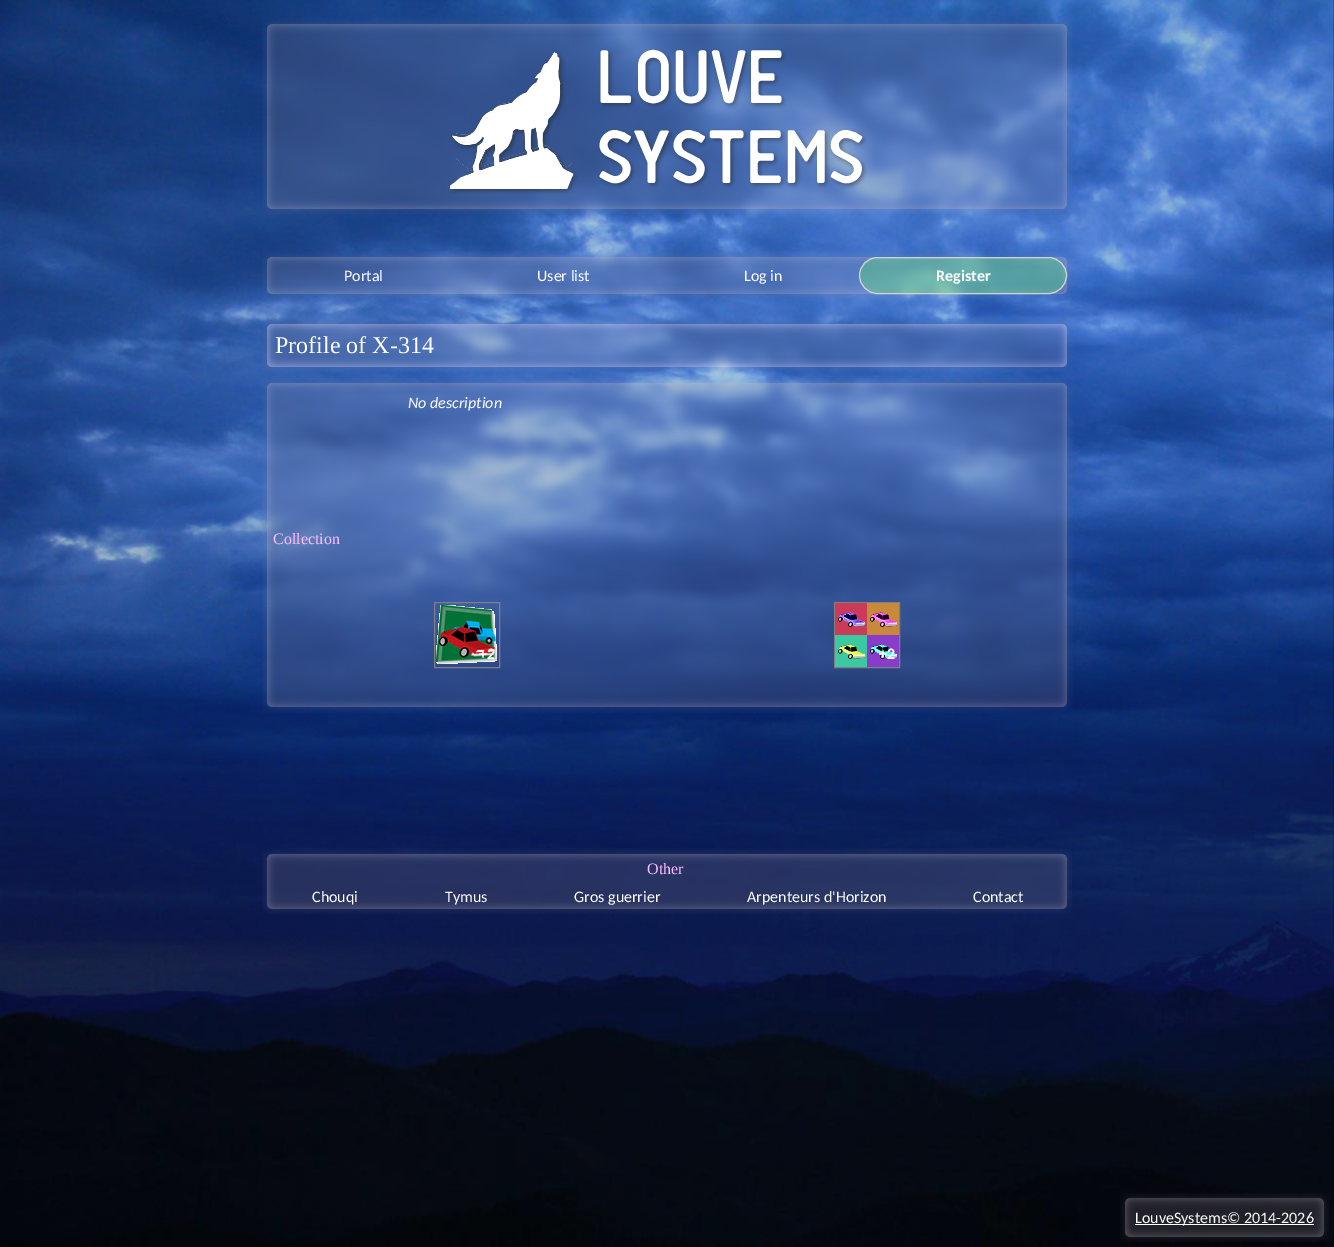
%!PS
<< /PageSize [1334 1247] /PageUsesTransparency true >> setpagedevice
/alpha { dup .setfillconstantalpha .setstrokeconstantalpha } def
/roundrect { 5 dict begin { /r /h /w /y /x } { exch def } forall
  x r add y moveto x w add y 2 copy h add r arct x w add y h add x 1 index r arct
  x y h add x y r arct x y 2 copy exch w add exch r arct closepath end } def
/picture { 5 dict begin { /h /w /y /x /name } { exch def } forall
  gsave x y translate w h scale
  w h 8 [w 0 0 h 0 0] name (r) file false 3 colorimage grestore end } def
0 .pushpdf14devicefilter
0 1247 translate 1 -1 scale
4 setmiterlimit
1 setgray
0 0 1334 1247 rectfill
(img1.rgb) 0 0 1334 1247 picture
(img2.rgb) 0 0 1334 1087 picture
0.2 alpha
0 setgray
267 24 800 185 5 roundrect fill
0.4 alpha
0.996 0.941 1 setrgbcolor
267 24 800 185 5 roundrect fill
1 alpha
(img3.rgb) 262 18 810 196 picture
(img4.rgb) 449 44 418 150 picture
0.2 alpha
0 setgray
267 257 800 37 5 roundrect fill
0.4 alpha
0.996 0.941 1 setrgbcolor
267 257 800 37 5 roundrect fill
1 alpha
(img5.rgb) 262 251 809 50 picture
/Carlito-Regular [16 0 0 -16 0 0] selectfont
1 setgray
344 281 moveto (Portal) show
537 281 moveto (User list) show
744 281 moveto (Log in) show
0.3 alpha
0.392 1 0.392 setrgbcolor
859.5 257.5 207 36 18 roundrect fill
1 alpha
0.827 setgray
859.5 257.5 207 36 18 roundrect stroke
/Carlito-Bold [16 0 0 -16 0 0] selectfont
1 setgray
936 281 moveto (Register) show
0.3 alpha
0.98 0.784 1 setrgbcolor
267 324 800 43 5 roundrect fill
0.4 alpha
0.996 0.941 1 setrgbcolor
267 324 800 43 5 roundrect fill
1 alpha
(img6.rgb) 262 317 810 55 picture
/LiberationSerif-Regular [24 0 0 -24 0 0] selectfont
1 setgray
275 353 moveto (Profile of X-314) show
0.2 alpha
0 setgray
267 383 800 324 5 roundrect fill
0.4 alpha
0.996 0.941 1 setrgbcolor
267 383 800 324 5 roundrect fill
1 alpha
(img7.rgb) 262 376 811 337 picture
/Carlito-Italic [16 0 0 -16 0 0] selectfont
1 setgray
408 408 moveto (No description) show
/LiberationSerif-Regular [16 0 0 -16 0 0] selectfont
0.996 0.737 1 setrgbcolor
273 544 moveto (Collection) show
0.502 setgray
434.5 602.5 65 65 rectstroke
(img8.rgb) 436 605 61 59 picture
/Carlito-Bold [16 0 0 -16 0 0] selectfont
1 setgray
479 659 moveto (+2) show
0.502 setgray
834.5 602.5 65 65 rectstroke
(img9.rgb) 835 603 64 64 picture
1 setgray
879 659 moveto (+2) show
0.2 alpha
0 setgray
267 854 800 55 5 roundrect fill
0.4 alpha
0.996 0.941 1 setrgbcolor
267 854 800 55 5 roundrect fill
1 alpha
(img10.rgb) 262 848 810 66 picture
/LiberationSerif-Regular [16 0 0 -16 0 0] selectfont
0.996 0.737 1 setrgbcolor
647 874 moveto (Other) show
/Carlito-Regular [16 0 0 -16 0 0] selectfont
1 setgray
312 902 moveto (Chouqi) show
445 902 moveto (Tymus) show
574 902 moveto (Gros guerrier) show
747 902 moveto (Arpenteurs d'Horizon) show
973 902 moveto (Contact) show
0 setgray
1125 1198 199 39 5 roundrect fill
0.4 alpha
0.996 0.941 1 setrgbcolor
1125 1198 199 39 5 roundrect fill
1 alpha
(img11.rgb) 1120 1193 209 49 picture
1 setgray
1135 1224 179 1 rectfill
1135 1223 moveto (LouveSystems© 2014-2026) show
.poppdf14devicefilter showpage
